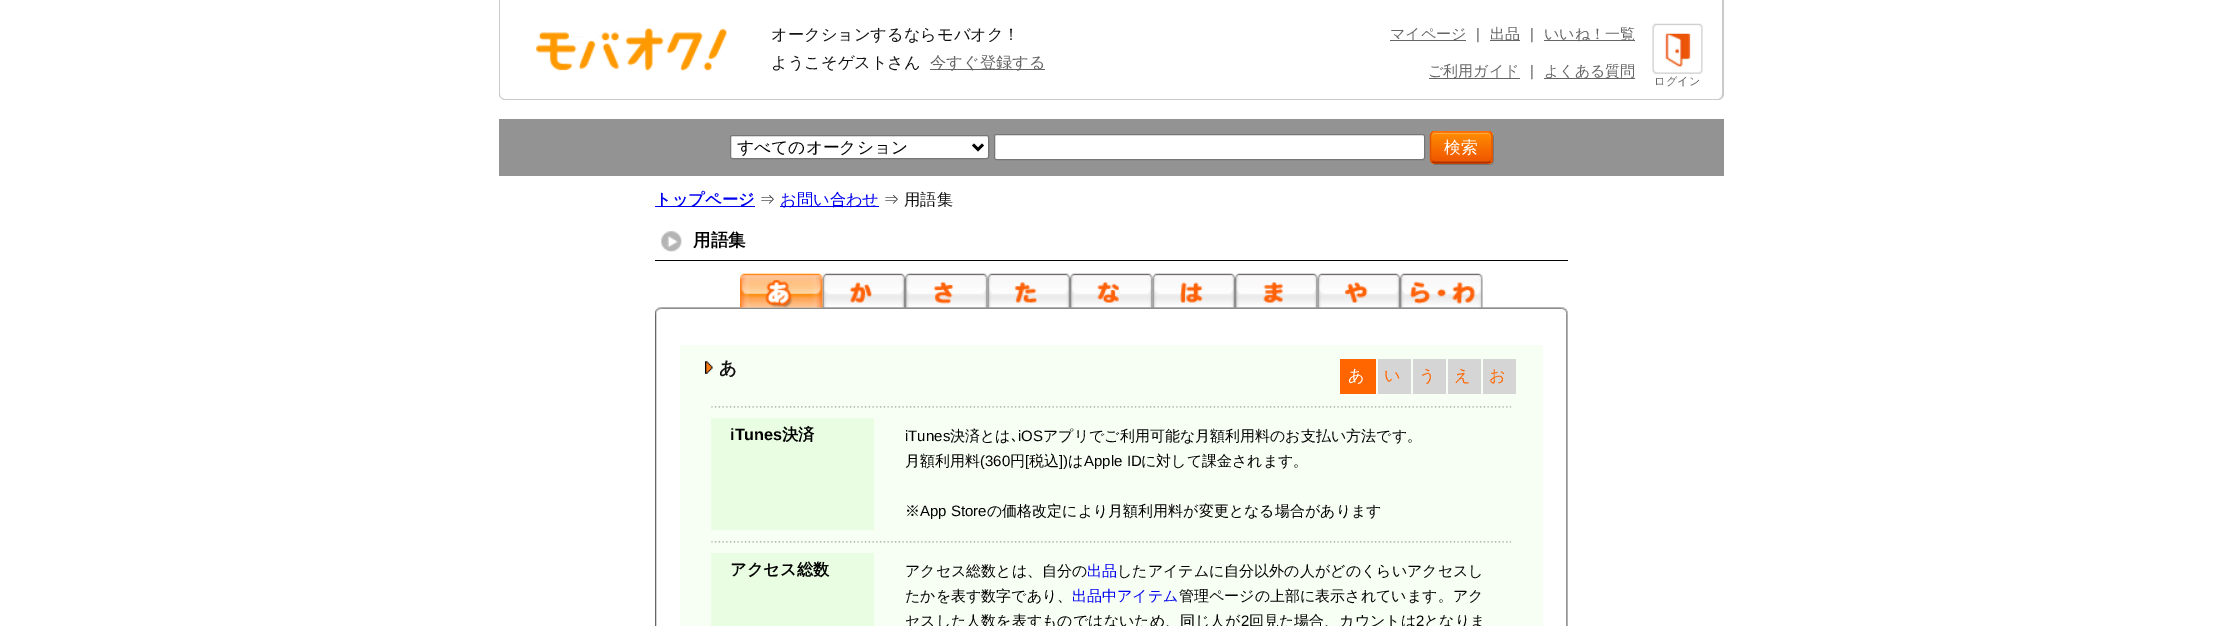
%!PS
<< /PageSize [2222 626] /PageUsesTransparency true >> setpagedevice
/alpha { dup .setfillconstantalpha .setstrokeconstantalpha } def
/roundrect { 5 dict begin { /r /h /w /y /x } { exch def } forall
  x r add y moveto x w add y 2 copy h add r arct x w add y h add x 1 index r arct
  x y h add x y r arct x y 2 copy exch w add exch r arct closepath end } def
/picture { 5 dict begin { /h /w /y /x /name } { exch def } forall
  gsave x y translate w h scale
  w h 8 [w 0 0 h 0 0] name (r) file false 3 colorimage grestore end } def
0 .pushpdf14devicefilter
0 626 translate 1 -1 scale
4 setmiterlimit
1 setgray
0 0 2222 626 rectfill
0.792 setgray
newpath 499 0 moveto 1724 0 lineto 1724 94 lineto 1724 97 1721 100 1718 100 curveto 505 100 lineto 502 100 499 97 499 94 curveto closepath 500 0 moveto 1722 0 lineto 1722 94 lineto 1722 97 1720 99 1718 99 curveto 505 99 lineto 502 99 500 97 500 94 curveto closepath eofill
(img1.rgb) 536 28 191 43 picture
/WenQuanYiZenHei-Medium [16.25 0 0 -16.25 0 0] selectfont
0.067 setgray
771 40 moveto (オークションするならモバオク！) show
771 68 moveto (ようこそゲストさん) show
0.396 setgray
930 69 115 1 rectfill
930 68 moveto (今すぐ登録する) show
1390 40 76 1 rectfill
/WenQuanYiZenHei-Medium [15 0 0 -15 0 0] selectfont
1390 39 moveto (マイページ) show
/LiberationSans-Regular [15 0 0 -15 0 0] selectfont
1476 39 moveto (|) show
1490 40 30 1 rectfill
/WenQuanYiZenHei-Medium [15 0 0 -15 0 0] selectfont
1490 39 moveto (出品) show
/LiberationSans-Regular [15 0 0 -15 0 0] selectfont
1530 39 moveto (|) show
1544 40 91 1 rectfill
/WenQuanYiZenHei-Medium [15 0 0 -15 0 0] selectfont
1544 39 moveto (いいね！一覧) show
1429 78 91 1 rectfill
1428 76 moveto (ご利用ガイド) show
/LiberationSans-Regular [15 0 0 -15 0 0] selectfont
1530 76 moveto (|) show
1544 78 91 1 rectfill
/WenQuanYiZenHei-Medium [15 0 0 -15 0 0] selectfont
1544 76 moveto (よくある質問) show
(img2.rgb) 1652 23 51 51 picture
/WenQuanYiZenHei-Medium [11.25 0 0 -11.25 0 0] selectfont
1654 85 moveto (ログイン) show
0.576 setgray
499 119 1225 57 rectfill
1 setgray
730.5 135.5 258 23 2 roundrect gsave fill grestore
0.463 setgray
stroke
0 setgray
2.5 setlinewidth
newpath 973 144.5 moveto 978 149.5 lineto 983 144.5 lineto stroke
/WenQuanYiZenHei-Medium [16.75 0 0 -16.75 0 0] selectfont
737 153 moveto (すべてのオークション) show
1 setgray
994.5 134.5 430 25 2 roundrect gsave fill grestore
0.463 setgray
1 setlinewidth
stroke
newpath 1432 162 moveto 1433 164 1434 165 1436 165 curveto 1489 165 lineto 1492 165 1494 163 1494 160 curveto 1494 138 lineto 1494 136 1493 135 1492 134 curveto 1492 136 lineto 1492 159 lineto 1492 162 1490 164 1488 164 curveto 1435 164 lineto 1434 164 1433 163 1432 162 curveto closepath fill
gsave
1430 131 63 33 5 roundrect clip newpath
gsave newpath 1430 131 moveto 1493 131 lineto 1493 133 lineto 1430 133 lineto closepath clip newpath
<< /ShadingType 2 /ColorSpace /DeviceRGB /Coords [1431 103 1431 133] /Extend [true true] /Function << /FunctionType 2 /Domain [0 1] /C0 [1 0.549 0] /C1 [0.937 0.325 0] /N 1 >> >> shfill grestore
gsave newpath 1430 133 moveto 1493 133 lineto 1493 163 lineto 1430 163 lineto closepath clip newpath
<< /ShadingType 2 /ColorSpace /DeviceRGB /Coords [1431 133 1431 163] /Extend [true true] /Function << /FunctionType 2 /Domain [0 1] /C0 [1 0.549 0] /C1 [0.937 0.325 0] /N 1 >> >> shfill grestore
gsave newpath 1430 163 moveto 1493 163 lineto 1493 164 lineto 1430 164 lineto closepath clip newpath
<< /ShadingType 2 /ColorSpace /DeviceRGB /Coords [1431 163 1431 193] /Extend [true true] /Function << /FunctionType 2 /Domain [0 1] /C0 [1 0.549 0] /C1 [0.937 0.325 0] /N 1 >> >> shfill grestore
grestore
0.15 alpha
0 setgray
newpath 1431 158 moveto 1431 165 1439 163 1444 163 curveto 1478 163 lineto 1483 163 1491 165 1491 158 curveto 1491 160 1490 161 1488 161 curveto 1435 161 lineto 1433 161 1431 160 1431 158 curveto closepath fill
1 alpha
1 0.659 0.251 setrgbcolor
newpath 1435 134 moveto 1488 134 lineto 1490 134 1491 135 1491 138 curveto 1491 131 1483 133 1478 133 curveto 1444 133 lineto 1439 133 1431 131 1431 138 curveto 1431 135 1433 134 1435 134 curveto closepath fill
1 0.482 0.031 setrgbcolor
1.2 setlinewidth
newpath 1432 133 moveto 1432.5 132.5 1434 132 1435 132 curveto 1487.5 132 lineto 1488.5 132 1490 132.5 1490.5 133 curveto stroke
0.882 0.329 0 setrgbcolor
newpath 1490.5 133 moveto 1491.5 134 1492 135 1492 136 curveto 1492 159 lineto 1492 160 1491.5 161 1490.5 162 curveto stroke
0.678 0.157 0 setrgbcolor
newpath 1490.5 162 moveto 1490 162.5 1488.5 163 1487.5 163 curveto 1435 163 lineto 1434 163 1432.5 162.5 1432 162 curveto stroke
0.882 0.329 0 setrgbcolor
newpath 1432 162 moveto 1431 161 1430.5 160 1430.5 159 curveto 1430.5 136 lineto 1430.5 135 1431 134 1432 133 curveto stroke
1 setgray
1444 153 moveto (検索) show
0 0 0.933 setrgbcolor
655 206 100 1 rectfill
/WenQuanYiZenHei-Bold [16.25 0 0 -16.25 0 0] selectfont
655 205 moveto (トップページ) show
/WenQuanYiZenHei-Medium [16.25 0 0 -16.25 0 0] selectfont
0.067 setgray
759 205 moveto (⇒) show
0 0 0.933 setrgbcolor
780 206 99 1 rectfill
780 205 moveto (お問い合わせ) show
0.067 setgray
883 205 moveto (⇒) show
904 205 moveto (用語集) show
(img3.rgb) 661 231 21 21 picture
/WenQuanYiZenHei-Bold [17.5 0 0 -17.5 0 0] selectfont
0 setgray
693 246 moveto (用語集) show
655 260 913 1 rectfill
(img5.rgb) 822 273 83 35 picture
(img6.rgb) 905 273 83 35 picture
(img7.rgb) 987 273 83 35 picture
(img8.rgb) 1070 273 83 35 picture
(img9.rgb) 1152 273 83 35 picture
(img10.rgb) 1235 273 83 35 picture
(img11.rgb) 1317 273 83 35 picture
(img12.rgb) 1400 273 83 35 picture
(img14.rgb) 661 307 901 2 picture
(img4.rgb) 740 273 83 35 picture
(img16.rgb) 655 313 2 313 picture
(img13.rgb) 655 307 7 7 picture
(img20.rgb) 1566 313 2 313 picture
(img15.rgb) 1561 307 7 7 picture
0.969 0.996 0.957 setrgbcolor
680 345 863 281 rectfill
(img17.rgb) 705 361 8 13 picture
0.067 setgray
719 374 moveto (あ) show
1 0.4 0 setrgbcolor
1340 359 36 35 rectfill
/WenQuanYiZenHei-Medium [16.25 0 0 -16.25 0 0] selectfont
1 setgray
1348 381 moveto (あ) show
0.835 setgray
1378 359 33 35 rectfill
1 0.4 0 setrgbcolor
1384 381 moveto (い) show
0.835 setgray
1413 359 33 35 rectfill
1 0.4 0 setrgbcolor
1419 381 moveto (う) show
0.835 setgray
1448 359 33 35 rectfill
1 0.4 0 setrgbcolor
1454 381 moveto (え) show
0.835 setgray
1483 359 33 35 rectfill
1 0.4 0 setrgbcolor
1489 381 moveto (お) show
(img18.rgb) 711 406 801 2 picture
0.91 0.992 0.882 setrgbcolor
711 418 163 112 rectfill
/LiberationSans-Bold [16.25 0 0 -16.25 0 0] selectfont
0 setgray
730 440 moveto (iTunes) show
/WenQuanYiZenHei-Bold [16.25 0 0 -16.25 0 0] selectfont
782 440 moveto (決済) show
/LiberationSans-Regular [15 0 0 -15 0 0] selectfont
905 441 moveto (iTunes) show
/WenQuanYiZenHei-Medium [15 0 0 -15 0 0] selectfont
950 441 moveto (決済とは) show
/IPAPGothic-Regular [15 0 0 -15 0 0] selectfont
1011 441 moveto (､) show
/LiberationSans-Regular [15 0 0 -15 0 0] selectfont
1018 441 moveto (iOS) show
/WenQuanYiZenHei-Medium [15 0 0 -15 0 0] selectfont
1043 441 moveto (アプリでご利用可能な月額利用料のお支払い方法です。) show
905 466 moveto (月額利用料) show
/LiberationSans-Regular [15 0 0 -15 0 0] selectfont
980 466 moveto (\(360) show
/WenQuanYiZenHei-Medium [15 0 0 -15 0 0] selectfont
1010 466 moveto (円) show
/LiberationSans-Regular [15 0 0 -15 0 0] selectfont
1025 466 moveto ([) show
/WenQuanYiZenHei-Medium [15 0 0 -15 0 0] selectfont
1029 466 moveto (税込) show
/LiberationSans-Regular [15 0 0 -15 0 0] selectfont
1059 466 moveto (]\)) show
/WenQuanYiZenHei-Medium [15 0 0 -15 0 0] selectfont
1068 466 moveto (は) show
/LiberationSans-Regular [15 0 0 -15 0 0] selectfont
1084 466 moveto (Apple ID) show
/WenQuanYiZenHei-Medium [15 0 0 -15 0 0] selectfont
1141 466 moveto (に対して課金されます。) show
905 516 moveto (※) show
/LiberationSans-Regular [15 0 0 -15 0 0] selectfont
920 516 moveto (App Store) show
/WenQuanYiZenHei-Medium [15 0 0 -15 0 0] selectfont
987 516 moveto (の価格改定により月額利用料が変更となる場合があります) show
(img19.rgb) 711 541 801 2 picture
0.91 0.992 0.882 setrgbcolor
711 553 163 73 rectfill
/WenQuanYiZenHei-Bold [16.25 0 0 -16.25 0 0] selectfont
0 setgray
730 575 moveto (アクセス総数) show
/WenQuanYiZenHei-Medium [15 0 0 -15 0 0] selectfont
905 576 moveto (アクセス総数とは、自分の) show
0 0 0.933 setrgbcolor
1087 576 moveto (出品) show
0 setgray
1117 576 moveto (したアイテムに自分以外の人がどのくらいアクセスし) show
905 601 moveto (たかを表す数字であり、) show
0 0 0.933 setrgbcolor
1072 601 moveto (出品中アイテム) show
0 setgray
1179 601 moveto (管理ページの上部に表示されています。アク) show
905 626 moveto (セスした人数を表すものではないため、同じ人が) show
/LiberationSans-Regular [15 0 0 -15 0 0] selectfont
1241 626 moveto (2) show
/WenQuanYiZenHei-Medium [15 0 0 -15 0 0] selectfont
1249 626 moveto (回見た場合、カウントは) show
/LiberationSans-Regular [15 0 0 -15 0 0] selectfont
1416 626 moveto (2) show
/WenQuanYiZenHei-Medium [15 0 0 -15 0 0] selectfont
1424 626 moveto (となりま) show
.poppdf14devicefilter showpage
